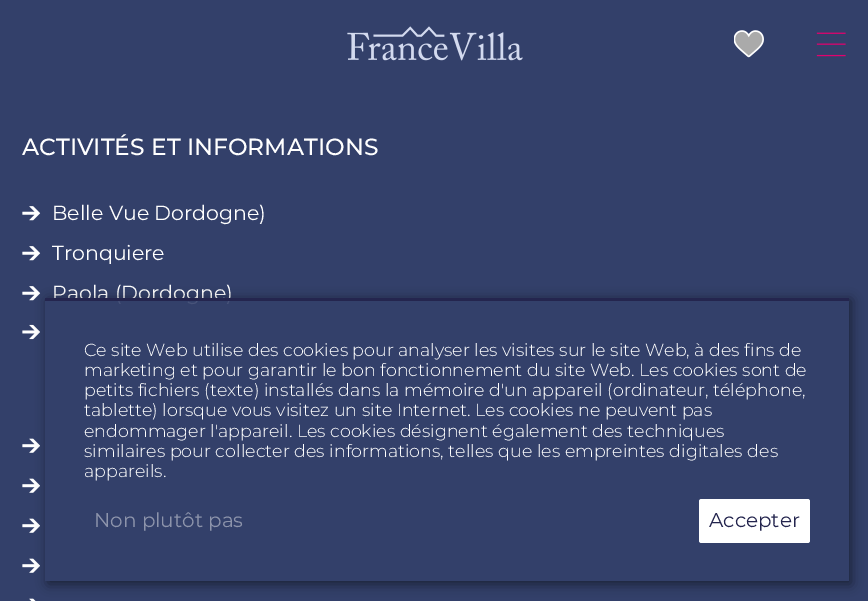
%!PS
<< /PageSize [868 601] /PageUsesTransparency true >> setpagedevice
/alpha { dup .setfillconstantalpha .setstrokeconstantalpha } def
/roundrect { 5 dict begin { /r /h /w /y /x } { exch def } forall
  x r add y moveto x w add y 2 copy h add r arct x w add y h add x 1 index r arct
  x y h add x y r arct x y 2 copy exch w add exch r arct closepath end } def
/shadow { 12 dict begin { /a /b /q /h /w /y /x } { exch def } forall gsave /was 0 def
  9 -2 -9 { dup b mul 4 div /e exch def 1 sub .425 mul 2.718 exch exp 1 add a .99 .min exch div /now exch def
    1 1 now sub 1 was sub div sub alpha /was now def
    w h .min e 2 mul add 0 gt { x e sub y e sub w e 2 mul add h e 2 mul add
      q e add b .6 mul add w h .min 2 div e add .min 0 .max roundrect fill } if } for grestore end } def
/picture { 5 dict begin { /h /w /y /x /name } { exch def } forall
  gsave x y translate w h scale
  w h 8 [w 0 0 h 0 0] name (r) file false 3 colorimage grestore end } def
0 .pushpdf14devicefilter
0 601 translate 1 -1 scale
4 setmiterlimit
0.2 0.251 0.416 setrgbcolor
0 0 868 601 rectfill
(img1.rgb) 347 26 176 35 picture
(img2.rgb) 734 30 30 28 picture
(img3.rgb) 816 32 30 25 picture
/Montserrat-Medium [23.4 0 0 -23.4 0 0] selectfont
1 setgray
22 155 moveto (ACTIVITÉS ET INFORMATIONS) show
(img4.rgb) 22 206 19 15 picture
/Montserrat-Regular [20.5 0 0 -20.5 0 0] selectfont
52 220 moveto (Belle Vue Dordogne\)) show
(img4.rgb) 22 246 19 15 picture
52 260 moveto (Tronquiere) show
(img4.rgb) 22 286 19 15 picture
52 300 moveto (Paola \(Dordogne\)) show
(img5.rgb) 22 324 18 16 picture
(img6.rgb) 22 438 18 15 picture
(img6.rgb) 22 478 18 15 picture
(img6.rgb) 22 518 18 15 picture
(img6.rgb) 22 558 18 15 picture
(img7.rgb) 29 598 7 3 picture
gsave
newpath 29 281 moveto 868 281 lineto 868 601 lineto 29 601 lineto closepath 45 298 moveto 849 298 lineto 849 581 lineto 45 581 lineto closepath eoclip newpath
0 setgray
48 300 803 284 0 6 0.5 shadow
grestore
0.9 alpha
0.2 0.251 0.416 setrgbcolor
117 301 732 280 rectfill
1 alpha
0.141 0.145 0.306 setrgbcolor
45 298 804 3 rectfill
/Montserrat-Light [17.5 0 0 -17.5 0 0] selectfont
1 setgray
84 356 moveto (Ce site Web utilise des cookies pour analyser les visites sur le site Web, à des fins de) show
84 376 moveto (marketing et pour garantir le bon fonctionnement du site Web. Les cookies sont de) show
84 396 moveto (petits fichiers \(texte\) installés dans la mémoire d'un appareil \(ordinateur, téléphone,) show
84 416 moveto (tablette\) lorsque vous visitez un site Internet. Les cookies ne peuvent pas) show
84 437 moveto (endommager l'appareil. Les cookies désignent également des techniques) show
84 457 moveto (similaires pour collecter des informations, telles que les empreintes digitales des) show
84 477 moveto (appareils.) show
/Montserrat-Regular [20 0 0 -20 0 0] selectfont
0.553 0.58 0.671 setrgbcolor
94 527 moveto (Non plutôt pas) show
1 setgray
699 499 111 44 2.5 roundrect fill
0.141 0.145 0.306 setrgbcolor
709 527 moveto (Accepter) show
.poppdf14devicefilter showpage
